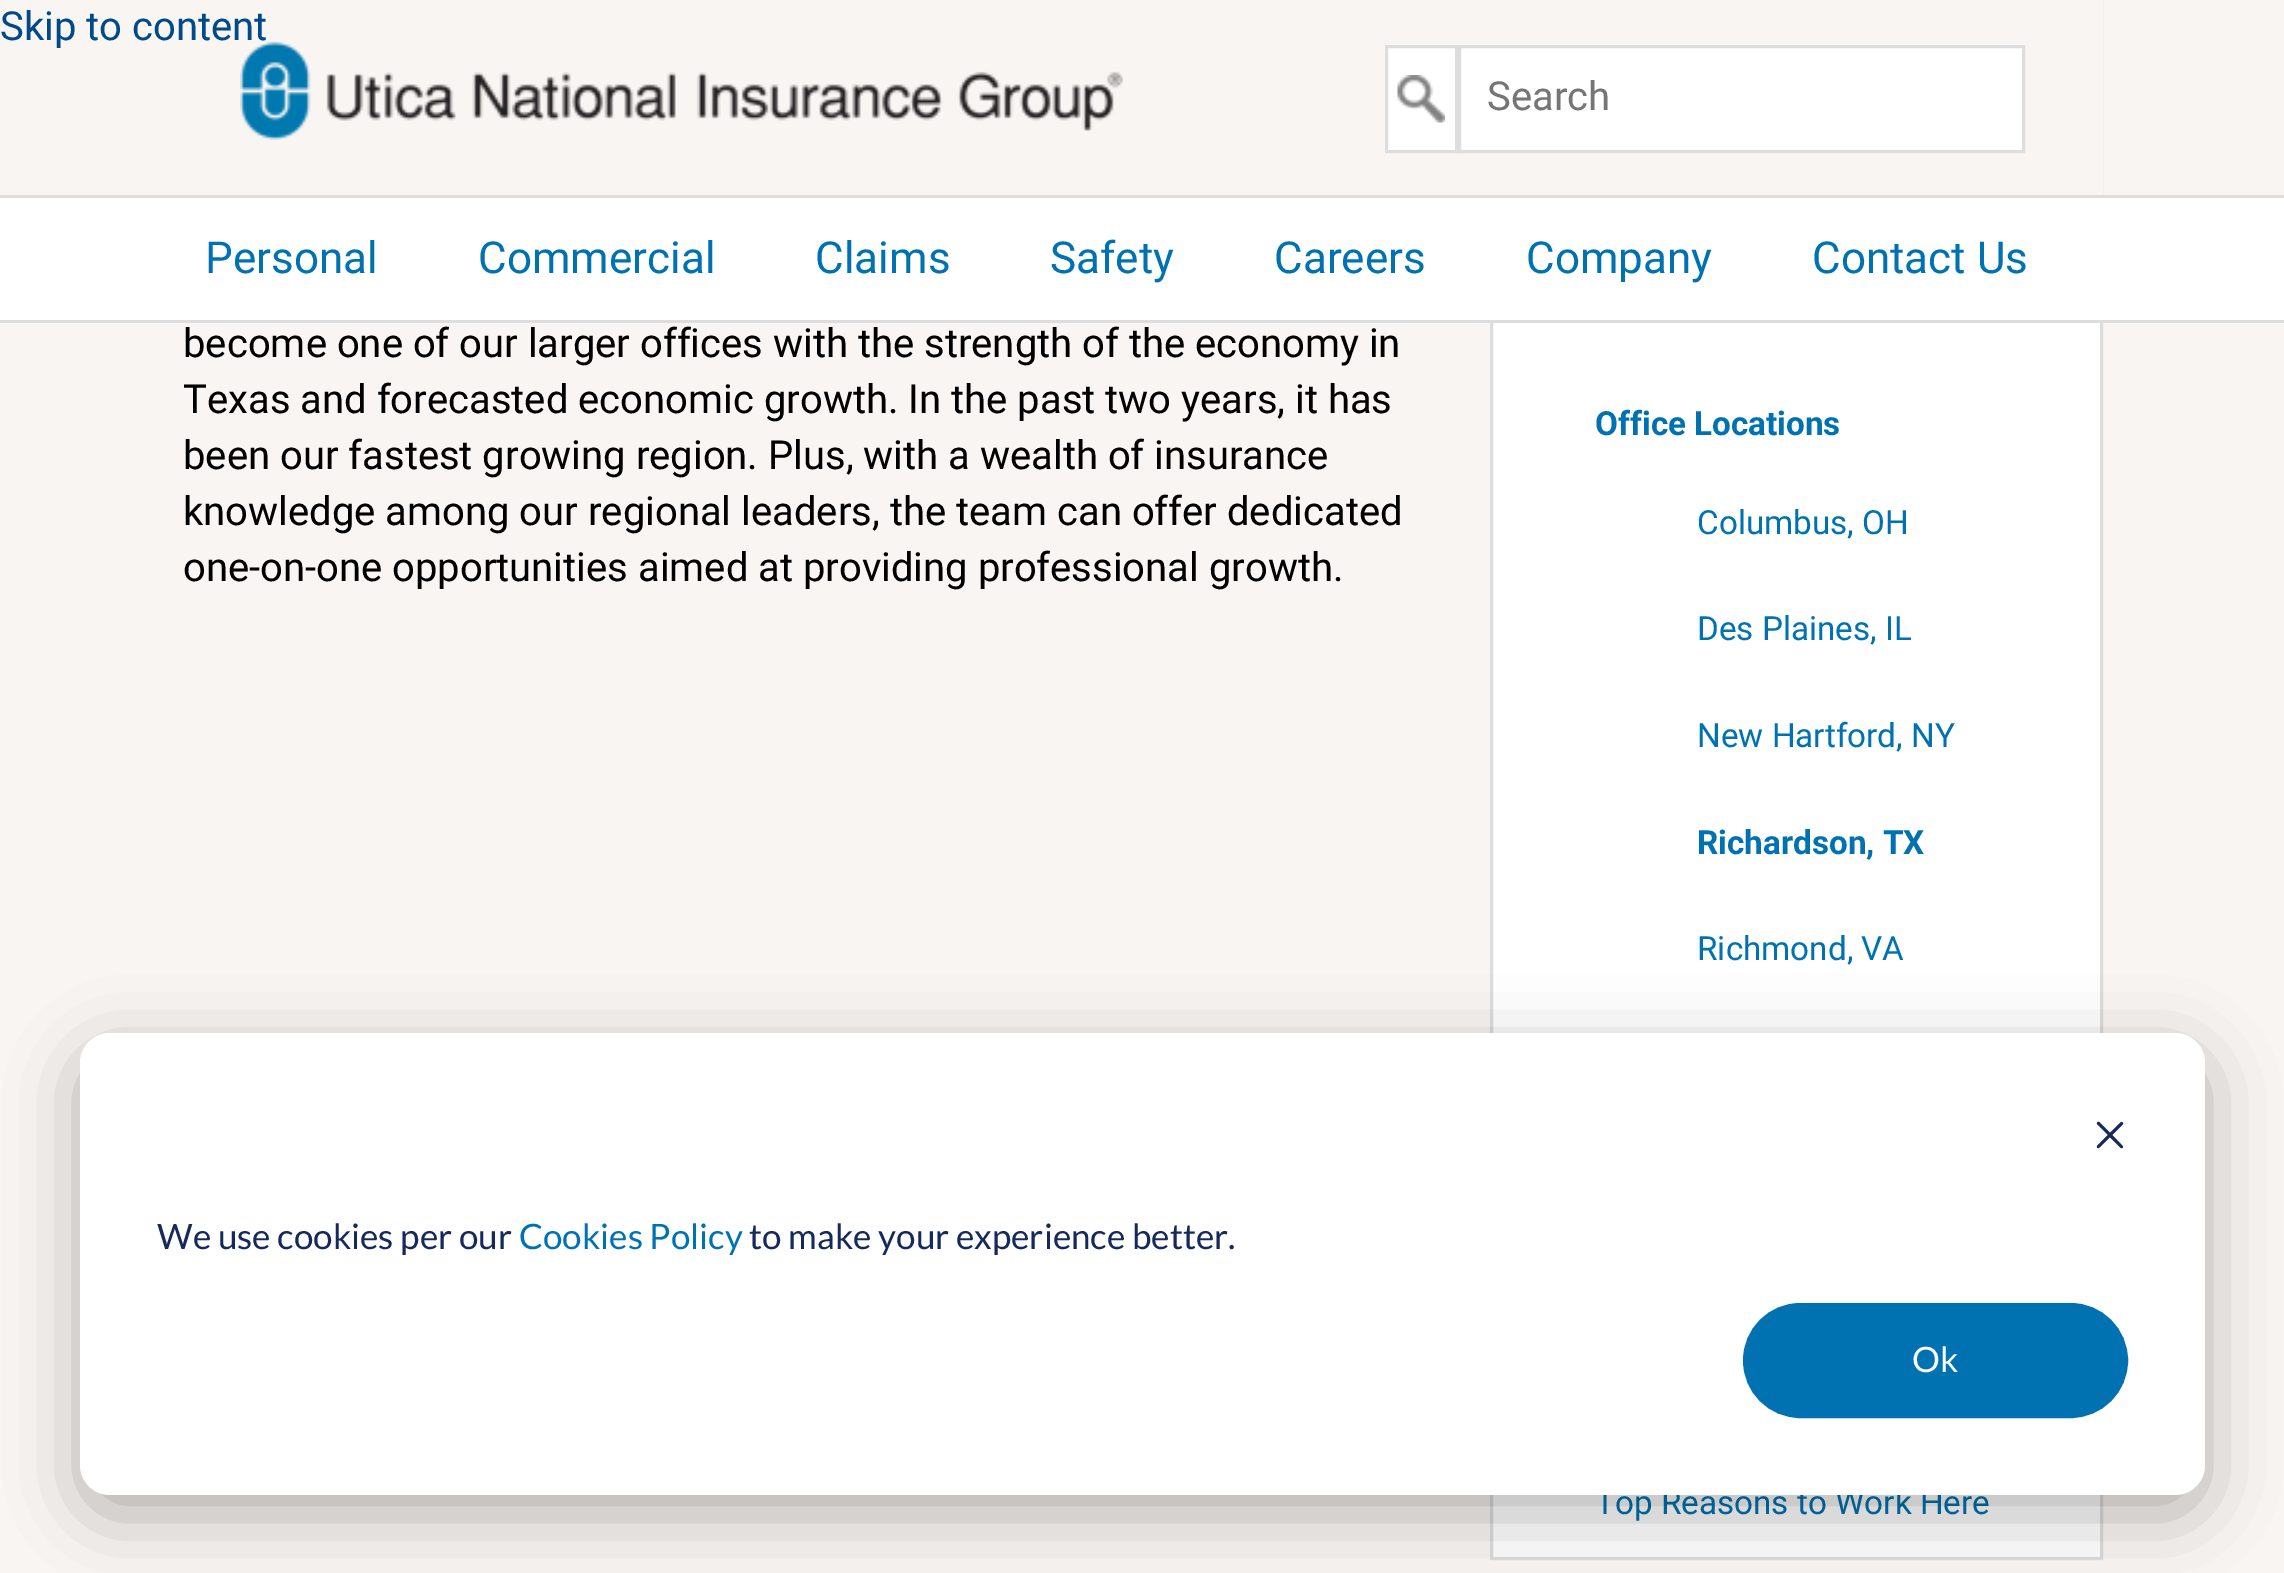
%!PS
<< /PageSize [2284 1573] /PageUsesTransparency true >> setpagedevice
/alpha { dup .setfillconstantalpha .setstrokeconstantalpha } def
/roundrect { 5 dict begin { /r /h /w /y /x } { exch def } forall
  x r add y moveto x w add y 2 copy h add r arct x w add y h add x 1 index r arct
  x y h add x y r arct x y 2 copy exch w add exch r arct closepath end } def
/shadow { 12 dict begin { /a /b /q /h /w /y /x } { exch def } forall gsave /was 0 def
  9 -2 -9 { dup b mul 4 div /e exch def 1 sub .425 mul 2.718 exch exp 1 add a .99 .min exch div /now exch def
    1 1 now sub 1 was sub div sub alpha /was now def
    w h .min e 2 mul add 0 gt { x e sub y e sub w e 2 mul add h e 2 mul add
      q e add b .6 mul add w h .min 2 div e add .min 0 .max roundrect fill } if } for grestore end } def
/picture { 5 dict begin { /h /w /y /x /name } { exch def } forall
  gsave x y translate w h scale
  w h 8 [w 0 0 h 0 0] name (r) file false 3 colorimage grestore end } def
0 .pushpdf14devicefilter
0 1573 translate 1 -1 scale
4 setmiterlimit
0.976 0.961 0.949 setrgbcolor
0 0 2284 1573 rectfill
1 setgray
1493 323 607 1234 rectfill
0.867 setgray
3 setlinewidth
1491.5 -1.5 610 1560 rectstroke
0.976 0.961 0.949 setrgbcolor
1490 0 613 195 rectfill
(img1.rgb) 240 41 883 99 picture
/Roboto-Regular [40 0 0 -40 0 0] selectfont
0 0.29 0.537 setrgbcolor
0 40 moveto (Skip to content) show
1 setgray
1388 48 67 102 rectfill
(img2.rgb) 1397 75 48 48 picture
0.867 setgray
1386.5 46.5 70 105 rectstroke
1 setgray
newpath 1459.5 46.5 moveto 2023.5 46.5 lineto 2023.5 151.5 lineto 1459.5 151.5 lineto closepath gsave fill grestore
0.867 setgray
stroke
0.459 setgray
1487 110 moveto (Search) show
1 setgray
0 198 2284 122 rectfill
0.867 setgray
0 195 2284 3 rectfill
0 320 2284 3 rectfill
/Roboto-Regular [44 0 0 -44 0 0] selectfont
0 0.447 0.694 setrgbcolor
205 273 moveto (Personal) show
478 273 moveto (Commercial) show
815 273 moveto (Claims) show
1050 273 moveto (Safety) show
1274 273 moveto (Careers) show
1526 273 moveto (Company) show
1812 273 moveto (Contact Us) show
/Roboto-Regular [40 0 0 -40 0 0] selectfont
0 setgray
183 357 moveto (become one of our larger offices with the strength of the economy in) show
183 413 moveto (Texas and forecasted economic growth. In the past two years, it has) show
183 469 moveto (been our fastest growing region. Plus, with a wealth of insurance) show
183 525 moveto (knowledge among our regional leaders, the team can offer dedicated) show
183 581 moveto (one-on-one opportunities aimed at providing professional growth.) show
/Roboto-Bold [33.25 0 0 -33.25 0 0] selectfont
0 0.447 0.694 setrgbcolor
1595 435 moveto (Office Locations) show
/Roboto-Regular [33.25 0 0 -33.25 0 0] selectfont
1697 534 moveto (Columbus, OH) show
1697 640 moveto (Des Plaines, IL) show
1697 747 moveto (New Hartford, NY) show
/Roboto-Bold [33.25 0 0 -33.25 0 0] selectfont
1697 854 moveto (Richardson, TX) show
/Roboto-Regular [33.25 0 0 -33.25 0 0] selectfont
1697 960 moveto (Richmond, VA) show
1595 1514 moveto (Top Reasons to Work Here) show
0 setgray
80 1053 2125 462 30 35 0.28 shadow
1 setgray
80 1033 2125 462 30 roundrect fill
(img3.rgb) 2096 1121 28 28 picture
/Lato-Regular [35 0 0 -35 0 0] selectfont
0.082 0.161 0.353 setrgbcolor
157 1249 moveto (We use cookies per our) show
0 0.447 0.694 setrgbcolor
519 1249 moveto (Cookies Policy) show
0.082 0.161 0.353 setrgbcolor
749 1249 moveto (to make your experience better.) show
0 0.447 0.694 setrgbcolor
1744.5 1304.5 382 112 56 roundrect gsave fill grestore
stroke
1 setgray
1912 1372 moveto (Ok) show
.poppdf14devicefilter showpage
